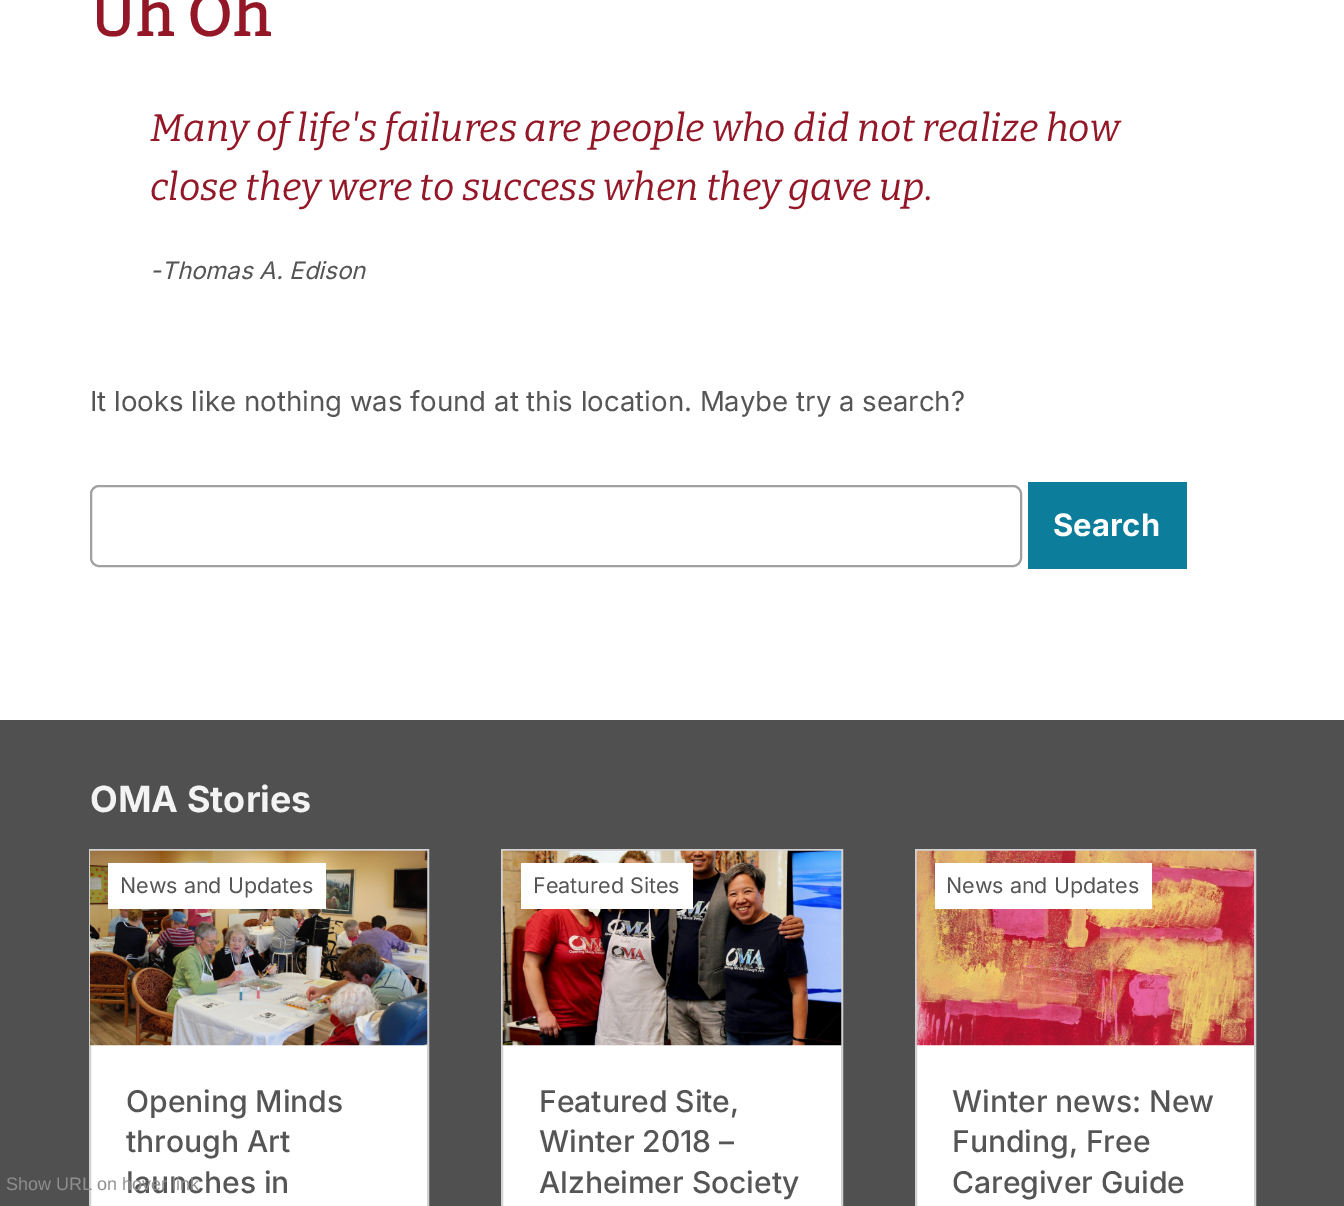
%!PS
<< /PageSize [1344 1206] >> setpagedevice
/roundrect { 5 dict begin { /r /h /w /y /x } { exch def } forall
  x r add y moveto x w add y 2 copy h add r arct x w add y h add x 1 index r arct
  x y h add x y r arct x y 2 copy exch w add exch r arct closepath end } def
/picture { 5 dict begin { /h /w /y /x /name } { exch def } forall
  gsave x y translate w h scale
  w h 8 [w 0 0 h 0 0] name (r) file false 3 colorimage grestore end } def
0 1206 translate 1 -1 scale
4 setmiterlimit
1 setgray
0 0 1344 1206 rectfill
/Bitter-Bold [60 0 0 -60 0 0] selectfont
0.58 0.09 0.157 setrgbcolor
90 36 moveto 1 0 (Uh Oh) ashow
/Bitter-ThinItalic [38.4 0 0 -38.4 0 0] selectfont
150 141 moveto (Many of life's failures are people who did not realize how) show
150 200 moveto (close they were to success when they gave up.) show
/Inter-Italic [24 0 0 -24 0 0] selectfont
0.333 setgray
150 279 moveto (-Thomas A. Edison) show
/Inter-Regular [27.6 0 0 -27.6 0 0] selectfont
90 411 moveto (It looks like nothing was found at this location. Maybe try a search?) show
0.627 setgray
2 setlinewidth
91 486 930 80 8 roundrect stroke
0.047 0.494 0.612 setrgbcolor
1028 482 159 87 rectfill
/Inter-Bold [31 0 0 -31 0 0] selectfont
1 setgray
1053 536 moveto (Search) show
0.314 setgray
0 720 1344 486 rectfill
/Inter-Bold [36 0 0 -36 0 0] selectfont
0.953 setgray
90 812 moveto (OMA Stories) show
1 setgray
91 1045 336 161 rectfill
0.824 setgray
90 850 338 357 rectstroke
(img1.rgb) 90 850 338 196 picture
1 setgray
108 863 218 46 rectfill
/Inter-Regular [21.5 0 0 -21.5 0 0] selectfont
0.333 setgray
120 893 moveto (News and Updates) show
/Inter-Medium [30 0 0 -30 0 0] selectfont
126 1112 moveto (Opening Minds) show
126 1152 moveto (through Art) show
126 1193 moveto (launches in) show
1 setgray
503 1045 338 161 rectfill
0.824 setgray
502 850 340 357 rectstroke
(img2.rgb) 502 850 340 196 picture
1 setgray
521 863 172 46 rectfill
/Inter-Regular [21.5 0 0 -21.5 0 0] selectfont
0.333 setgray
533 893 moveto (Featured Sites) show
/Inter-Medium [30 0 0 -30 0 0] selectfont
539 1112 moveto (Featured Site,) show
539 1152 moveto (Winter 2018 –) show
539 1193 moveto (Alzheimer Society) show
1 setgray
917 1045 337 161 rectfill
0.824 setgray
916 850 339 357 rectstroke
(img3.rgb) 916 850 338 196 picture
1 setgray
935 863 217 46 rectfill
/Inter-Regular [21.5 0 0 -21.5 0 0] selectfont
0.333 setgray
946 893 moveto (News and Updates) show
/Inter-Medium [30 0 0 -30 0 0] selectfont
952 1112 moveto (Winter news: New) show
952 1152 moveto (Funding, Free) show
952 1193 moveto (Caregiver Guide) show
/LiberationSans-Regular [18 0 0 -18 0 0] selectfont
0.561 setgray
6 1190 moveto (Show URL on hover link) show
showpage
